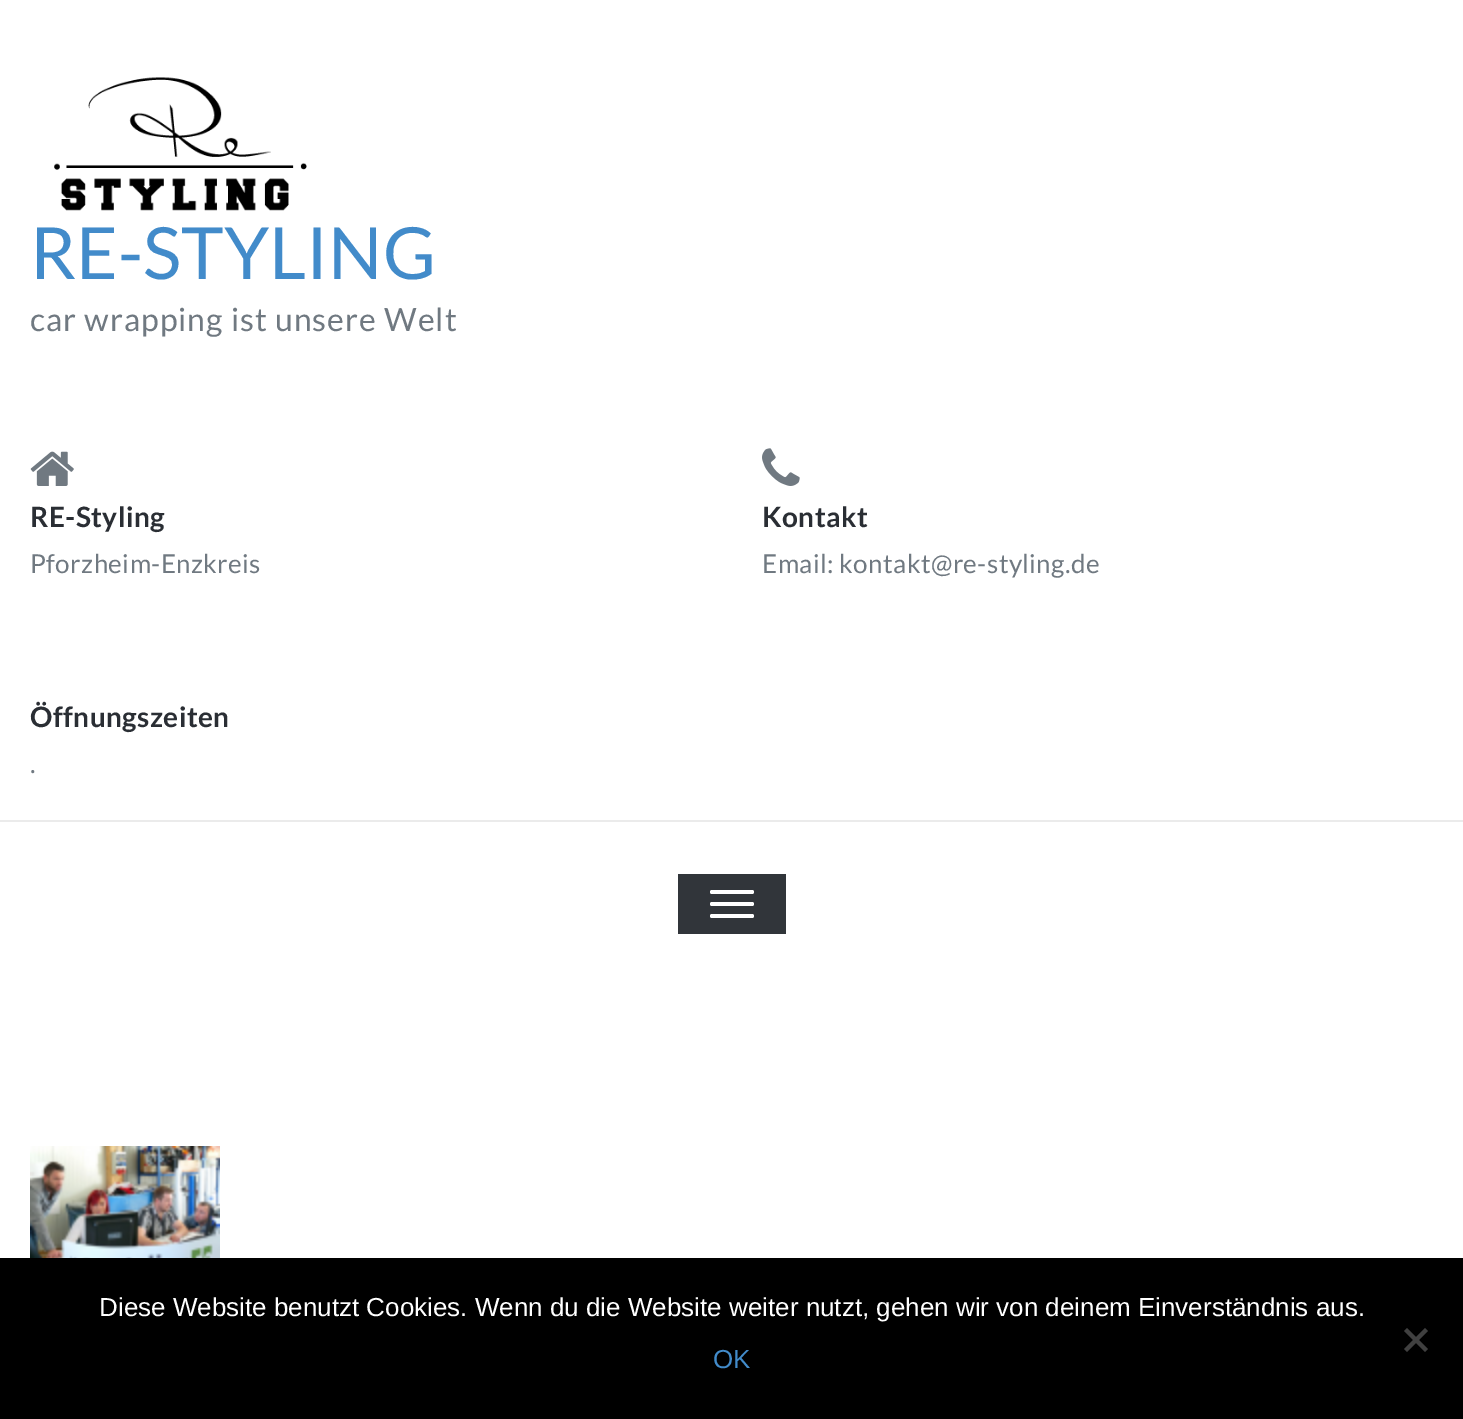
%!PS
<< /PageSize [1463 1419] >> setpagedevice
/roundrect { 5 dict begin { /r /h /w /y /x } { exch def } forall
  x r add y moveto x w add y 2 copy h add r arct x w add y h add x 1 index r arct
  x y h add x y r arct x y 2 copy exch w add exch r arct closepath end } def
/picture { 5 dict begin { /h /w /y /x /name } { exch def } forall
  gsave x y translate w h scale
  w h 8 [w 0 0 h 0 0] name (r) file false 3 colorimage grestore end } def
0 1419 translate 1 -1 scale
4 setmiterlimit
1 setgray
0 0 1463 1419 rectfill
(img1.rgb) 54 77 253 134 picture
/Lato-Regular [72 0 0 -72 0 0] selectfont
0.259 0.545 0.792 setrgbcolor
30 279 moveto (RE-STYLING) show
/Lato-Regular [32 0 0 -32 0 0] selectfont
0.439 0.475 0.506 setrgbcolor
30 331 moveto 1 0 (car wrapping ist unsere Welt) ashow
(img2.rgb) 30 451 44 35 picture
/Lato-Bold [28 0 0 -28 0 0] selectfont
0.165 0.18 0.204 setrgbcolor
30 527 moveto 0.4 0 (RE-Styling) ashow
/Lato-Regular [26 0 0 -26 0 0] selectfont
0.439 0.475 0.506 setrgbcolor
30 573 moveto 0.4 0 (Pforzheim-Enzkreis) ashow
(img3.rgb) 762 448 38 38 picture
/Lato-Bold [28 0 0 -28 0 0] selectfont
0.165 0.18 0.204 setrgbcolor
762 527 moveto 0.4 0 (Kontakt) ashow
/Lato-Regular [26 0 0 -26 0 0] selectfont
0.439 0.475 0.506 setrgbcolor
762 573 moveto 0.4 0 (Email: kontakt@re-styling.de) ashow
/Lato-Bold [28 0 0 -28 0 0] selectfont
0.165 0.18 0.204 setrgbcolor
30 727 moveto 0.4 0 (Öffnungszeiten) ashow
/Lato-Regular [26 0 0 -26 0 0] selectfont
0.439 0.475 0.506 setrgbcolor
30 773 moveto 0.4 0 (.) ashow
0.922 setgray
0 820 1463 2 rectfill
0.192 0.208 0.227 setrgbcolor
678 874 108 60 rectfill
1 setgray
710 890 44 4 2 roundrect fill
710 902 44 4 2 roundrect fill
710 914 44 4 2 roundrect fill
(img4.rgb) 30 1146 190 112 picture
0 setgray
0 1258 1463 161 rectfill
/LiberationSans-Regular [26 0 0 -26 0 0] selectfont
1 setgray
99 1316 moveto (Diese Website benutzt Cookies. Wenn du die Website weiter nutzt, gehen wir von deinem Einverständnis aus.) show
0.251 setgray
newpath 1425 1328 moveto 1428 1331 lineto 1407 1352 lineto 1404 1349 lineto closepath fill
newpath 1404 1331 moveto 1407 1328 lineto 1428 1349 lineto 1425 1352 lineto closepath fill
0.259 0.545 0.792 setrgbcolor
713 1368 moveto (OK) show
showpage
